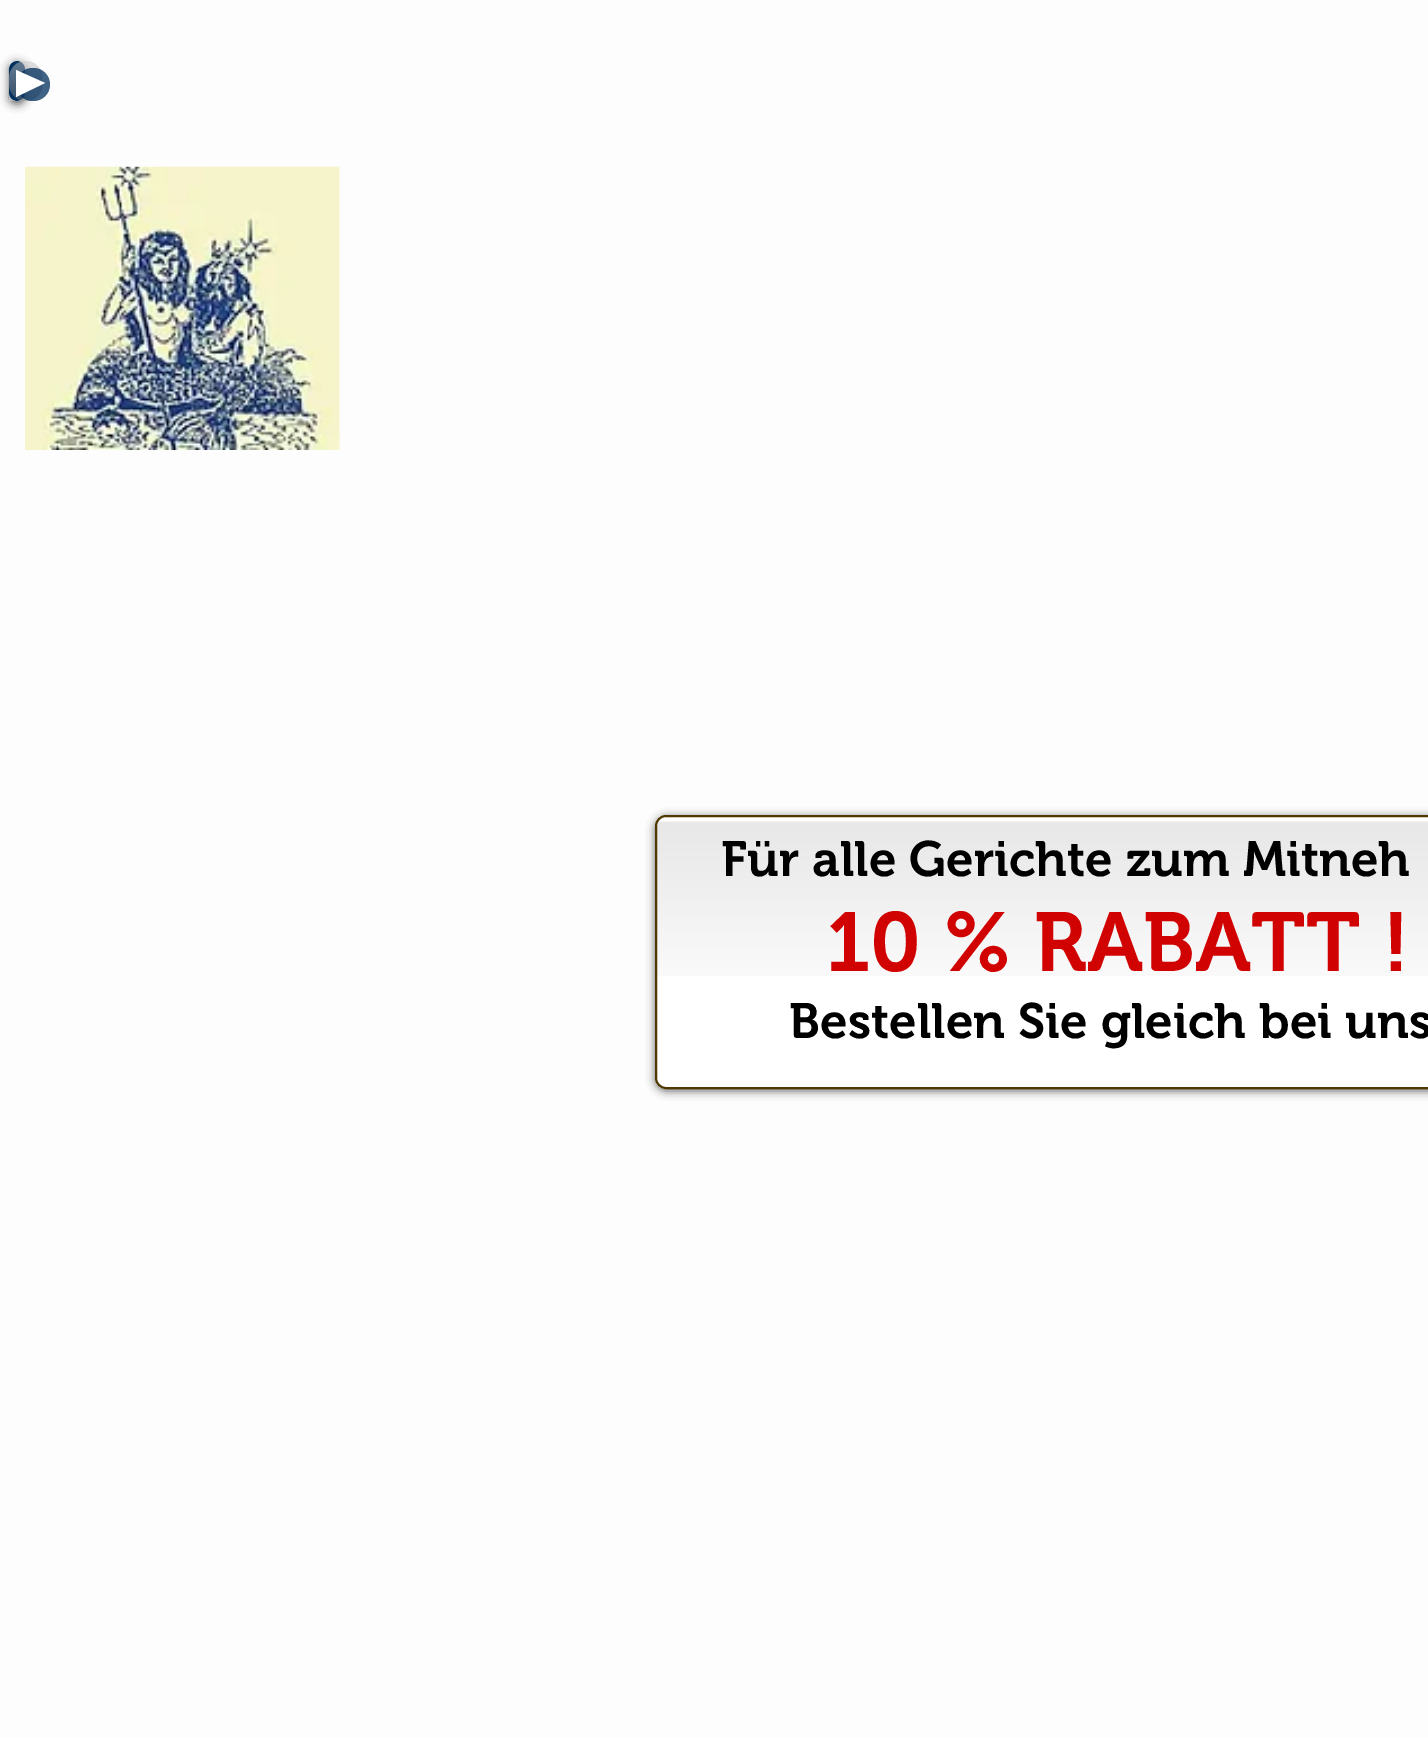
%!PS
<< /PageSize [1428 1738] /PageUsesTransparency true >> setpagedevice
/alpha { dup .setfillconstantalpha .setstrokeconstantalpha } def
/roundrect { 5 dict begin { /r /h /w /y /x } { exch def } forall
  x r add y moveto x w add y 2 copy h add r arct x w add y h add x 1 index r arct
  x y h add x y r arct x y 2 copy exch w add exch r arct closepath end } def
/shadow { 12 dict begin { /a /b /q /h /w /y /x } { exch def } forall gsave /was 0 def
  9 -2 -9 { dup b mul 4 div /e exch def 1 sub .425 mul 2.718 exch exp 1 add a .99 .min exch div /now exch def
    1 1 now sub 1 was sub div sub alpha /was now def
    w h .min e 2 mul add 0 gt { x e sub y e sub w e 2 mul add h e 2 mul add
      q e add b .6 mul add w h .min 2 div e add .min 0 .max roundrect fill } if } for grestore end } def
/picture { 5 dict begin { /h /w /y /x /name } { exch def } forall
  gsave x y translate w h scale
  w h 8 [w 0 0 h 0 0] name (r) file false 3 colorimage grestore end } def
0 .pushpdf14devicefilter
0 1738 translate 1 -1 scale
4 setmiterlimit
0.996 0.992 0.992 setrgbcolor
0 0 1428 1738 rectfill
0 setgray
9 63 16 41 8 4.5 0.6 shadow
0 0.18 0.365 setrgbcolor
9 61 16 40 8 roundrect fill
(img1.rgb) 9 61 23 40 picture
(img2.rgb) 9 61 34 40 picture
0.75 alpha
16 68 34 33 16.5 roundrect fill
1 alpha
1 setgray
newpath 16 97 moveto 16 70 lineto 45 83 lineto closepath fill
(img3.rgb) 25 166 315 284 picture
gsave
newpath 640 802 moveto 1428 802 lineto 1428 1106 lineto 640 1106 lineto closepath 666 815 moveto 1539 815 lineto 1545 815 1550 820 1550 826 curveto 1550 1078 lineto 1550 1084 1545 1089 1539 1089 curveto 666 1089 lineto 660 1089 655 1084 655 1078 curveto 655 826 lineto 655 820 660 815 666 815 curveto closepath eoclip newpath
0 setgray
655 817 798 274 11 4.5 0.6 shadow
grestore
0.8 alpha
655 815 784 274 11 roundrect fill
1 alpha
(img4.rgb) 655 821 773 155 picture
0.31 0.224 0 setrgbcolor
2 setlinewidth
656 816 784 272 10 roundrect stroke
/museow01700-SemiBold [49.5 0 0 -49.5 0 0] selectfont
0 setgray
721 876 moveto (Für alle Gerichte zum Mitneh) show
/museow01700-SemiBold [83.25 0 0 -83.25 0 0] selectfont
0.82 0.008 0.008 setrgbcolor
826 971 moveto (10 % RABATT !) show
/museow01700-SemiBold [49.5 0 0 -49.5 0 0] selectfont
0 setgray
789 1038 moveto (Bestellen Sie gleich bei uns) show
.poppdf14devicefilter showpage
